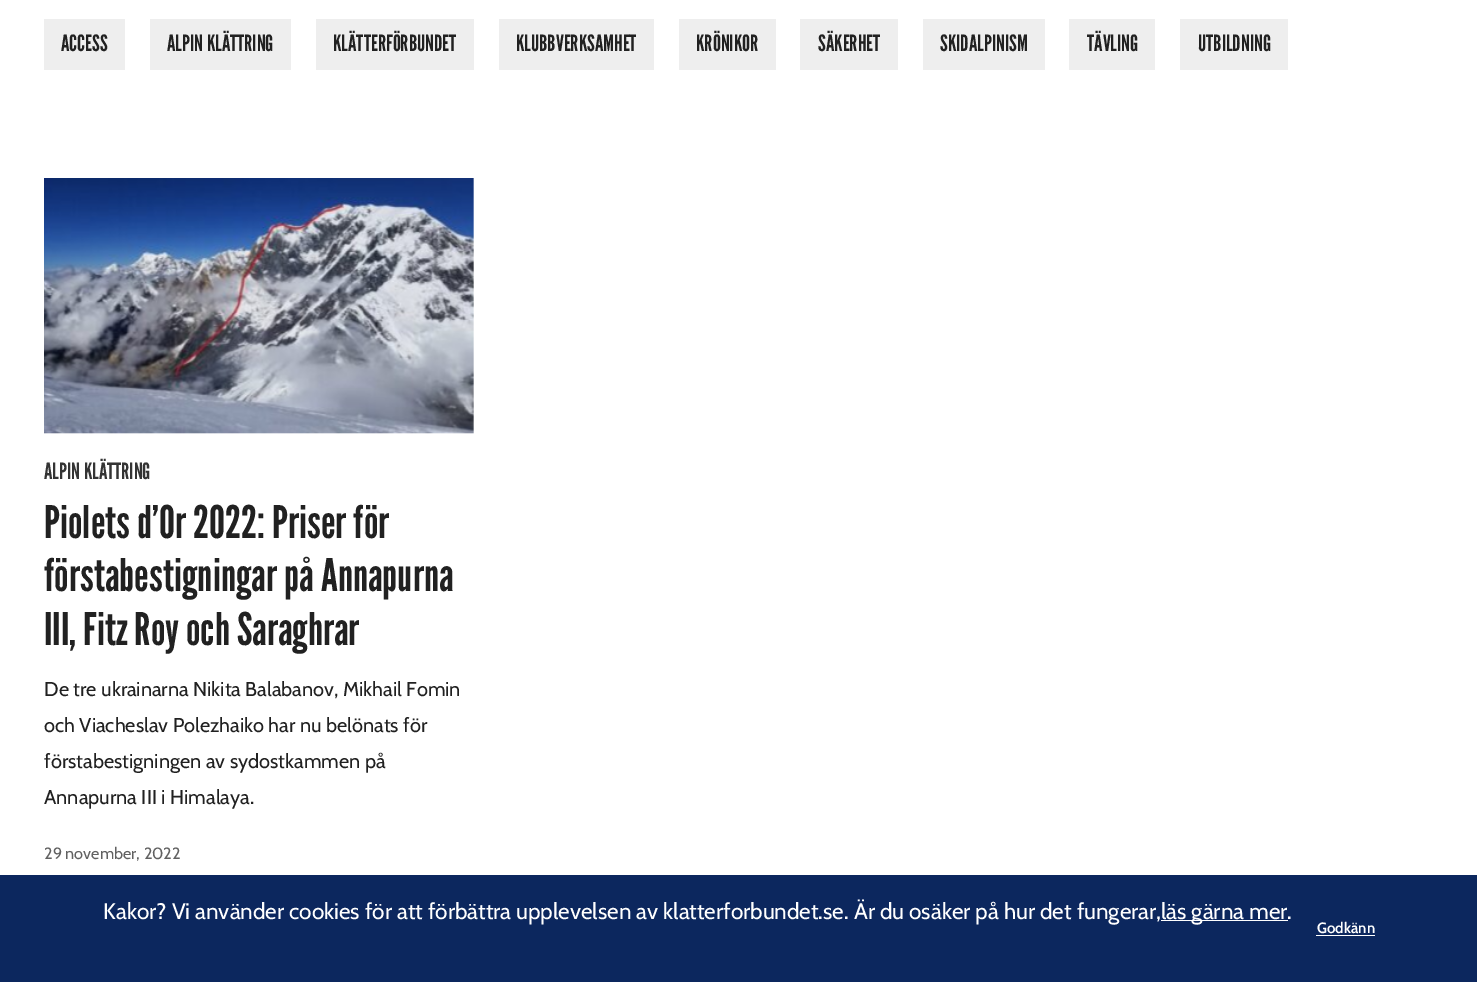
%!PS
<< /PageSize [1477 982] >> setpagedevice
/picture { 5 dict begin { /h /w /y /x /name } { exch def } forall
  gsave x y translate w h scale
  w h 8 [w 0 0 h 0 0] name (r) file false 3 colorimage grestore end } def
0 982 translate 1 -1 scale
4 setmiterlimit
1 setgray
0 0 1477 982 rectfill
0.933 setgray
44 19 81 51 rectfill
/LeagueGothic-Regular [22.5 0 0 -22.5 0 0] selectfont
0.129 setgray
61 51 moveto (ACCESS) show
0.933 setgray
150 19 141 51 rectfill
0.129 setgray
167 51 moveto (ALPIN KLÄTTRING) show
0.933 setgray
316 19 158 51 rectfill
0.129 setgray
333 51 moveto (KLÄTTERFÖRBUNDET) show
0.933 setgray
499 19 155 51 rectfill
0.129 setgray
516 51 moveto (KLUBBVERKSAMHET) show
0.933 setgray
679 19 97 51 rectfill
0.129 setgray
696 51 moveto (KRÖNIKOR) show
0.933 setgray
800 19 98 51 rectfill
0.129 setgray
818 51 moveto (SÄKERHET) show
0.933 setgray
923 19 122 51 rectfill
0.129 setgray
940 51 moveto (SKIDALPINISM) show
0.933 setgray
1069 19 86 51 rectfill
0.129 setgray
1087 51 moveto (TÄVLING) show
0.933 setgray
1180 19 108 51 rectfill
0.129 setgray
1198 51 moveto (UTBILDNING) show
(img1.rgb) 44 178 430 256 picture
0.204 setgray
44 479 moveto (ALPIN KLÄTTRING) show
/LeagueGothic-Regular [45 0 0 -45 0 0] selectfont
0.129 setgray
44 538 moveto (Piolets d’Or 2022: Priser för) show
44 591 moveto (förstabestigningar på Annapurna) show
44 645 moveto (III, Fitz Roy och Saraghrar) show
/Cabin-Regular [20 0 0 -20 0 0] selectfont
44 696 moveto (De tre ukrainarna Nikita Balabanov, Mikhail Fomin) show
44 732 moveto (och Viacheslav Polezhaiko har nu belönats för) show
44 768 moveto (förstabestigningen av sydostkammen på) show
44 804 moveto (Annapurna III i Himalaya.) show
/Cabin-Regular [16.25 0 0 -16.25 0 0] selectfont
0.38 setgray
44 859 moveto (29 november, 2022) show
0.047 0.153 0.369 setrgbcolor
0 875 1477 107 rectfill
/Cabin-Regular [22.5 0 0 -22.5 0 0] selectfont
1 setgray
103 919 moveto (Kakor? Vi använder cookies för att förbättra upplevelsen av klatterforbundet.se. Är du osäker på hur det fungerar,) show
1161 920 127 1 rectfill
1161 919 moveto (läs gärna mer) show
1287 919 moveto (.) show
/Cabin-SemiBold [15 0 0 -15 0 0] selectfont
1317 933 moveto (Godkänn) show
1316 935 59 1 rectfill
showpage
